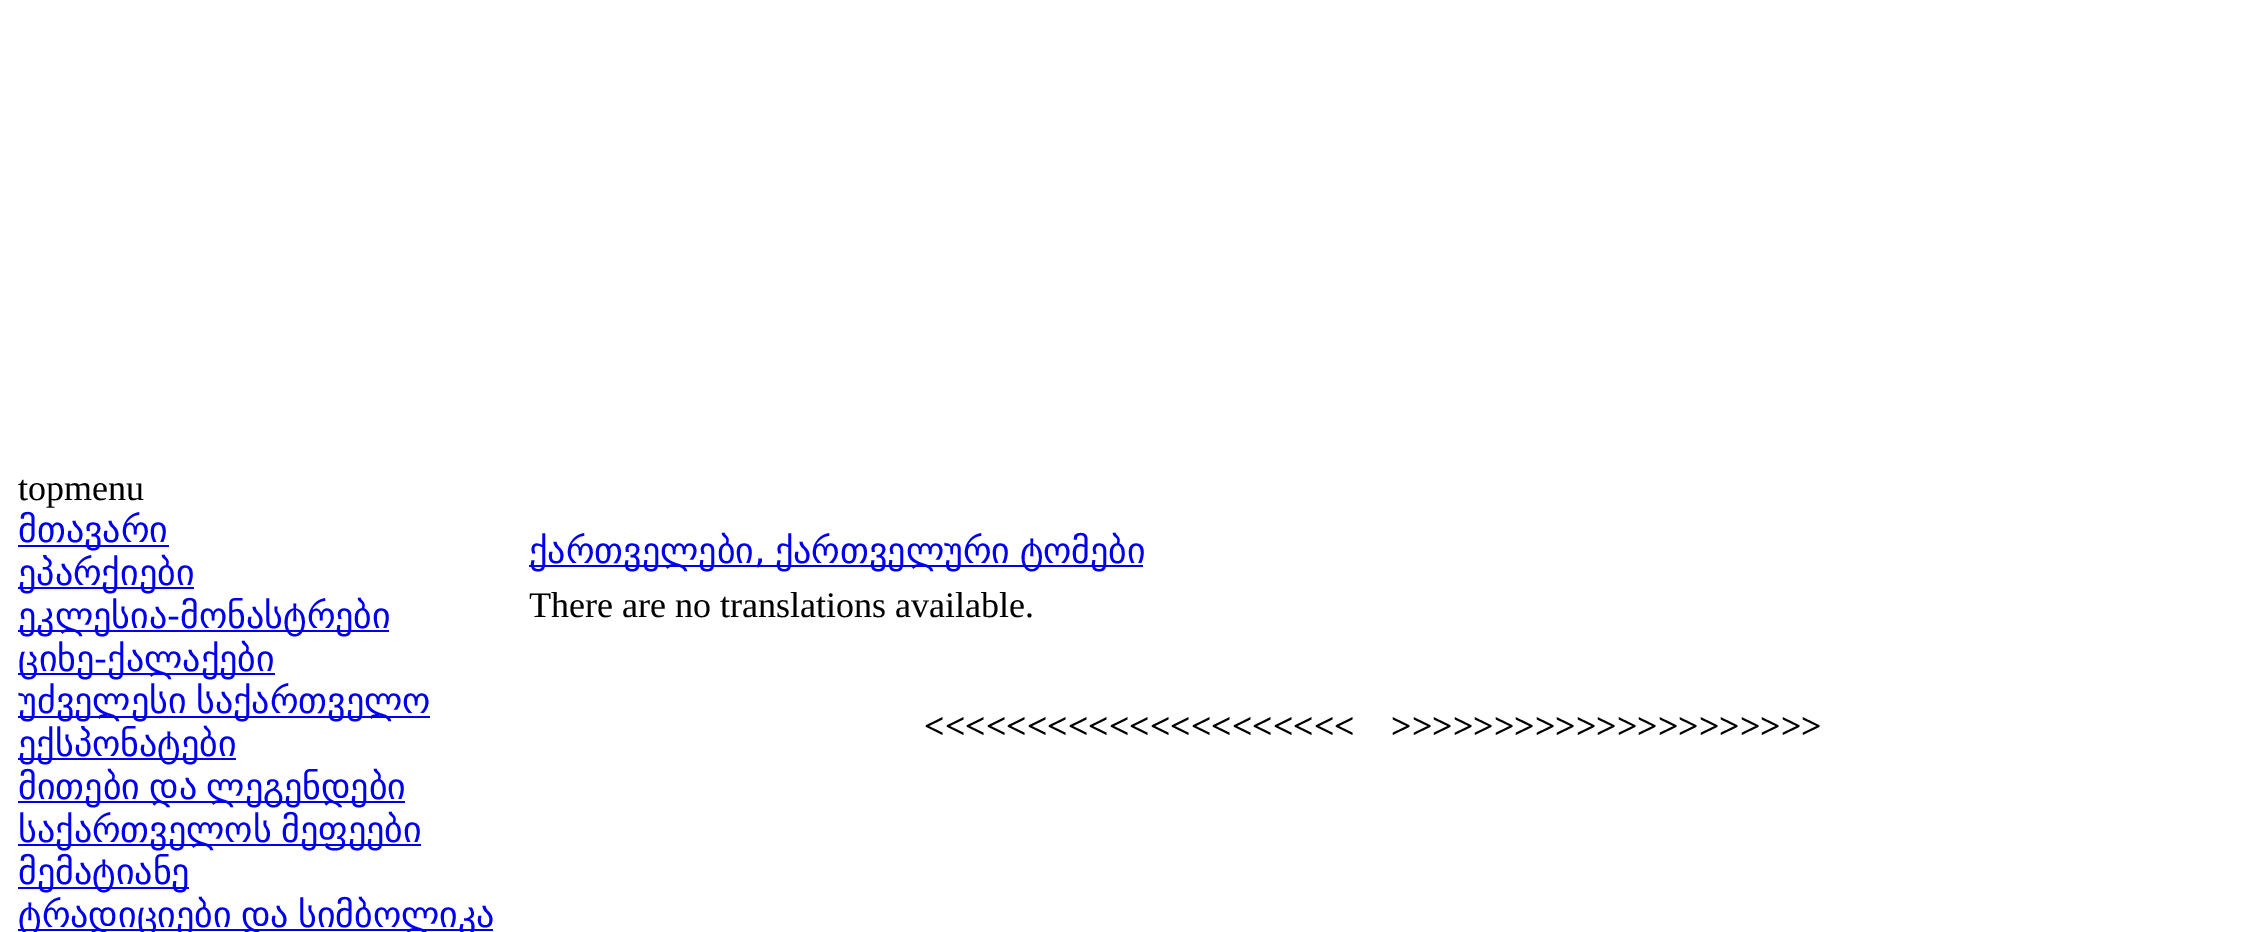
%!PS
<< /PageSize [2252 932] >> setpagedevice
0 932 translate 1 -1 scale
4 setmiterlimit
1 setgray
0 0 2252 932 rectfill
/LiberationSerif-Regular [36 0 0 -36 0 0] selectfont
0 setgray
18 500 moveto (topmenu) show
0 0 0.933 setrgbcolor
18 545 151 2 rectfill
/DejaVuSans-Regular [36 0 0 -36 0 0] selectfont
18 542 moveto (მთავარი) show
18 587 176 2 rectfill
18 585 moveto (ეპარქიები) show
18 630 371 2 rectfill
18 628 moveto (ეკლესია-მონასტრები) show
18 673 257 2 rectfill
18 671 moveto (ციხე-ქალაქები) show
18 716 412 2 rectfill
18 713 moveto -2 0 32 (უძველესი საქართველო) widthshow
18 758 218 2 rectfill
18 756 moveto (ექსპონატები) show
18 801 387 2 rectfill
18 799 moveto -2 0 32 (მითები და ლეგენდები) widthshow
18 844 403 2 rectfill
18 842 moveto -2 0 32 (საქართველოს მეფეები) widthshow
18 887 171 2 rectfill
18 884 moveto (მემატიანე) show
18 929 475 2 rectfill
18 927 moveto -2 0 32 (ტრადიციები და სიმბოლიკა) widthshow
529 565 614 2 rectfill
529 563 moveto -2 0 32 (ქართველები, ქართველური ტომები) widthshow
/LiberationSerif-Regular [36 0 0 -36 0 0] selectfont
0 setgray
529 617 moveto (There are no translations available.) show
/LiberationSerif-Bold [36 0 0 -36 0 0] selectfont
924 738 moveto (<<<<<<<<<<<<<<<<<<<<<) show
1391 738 moveto (>>>>>>>>>>>>>>>>>>>>>) show
showpage
